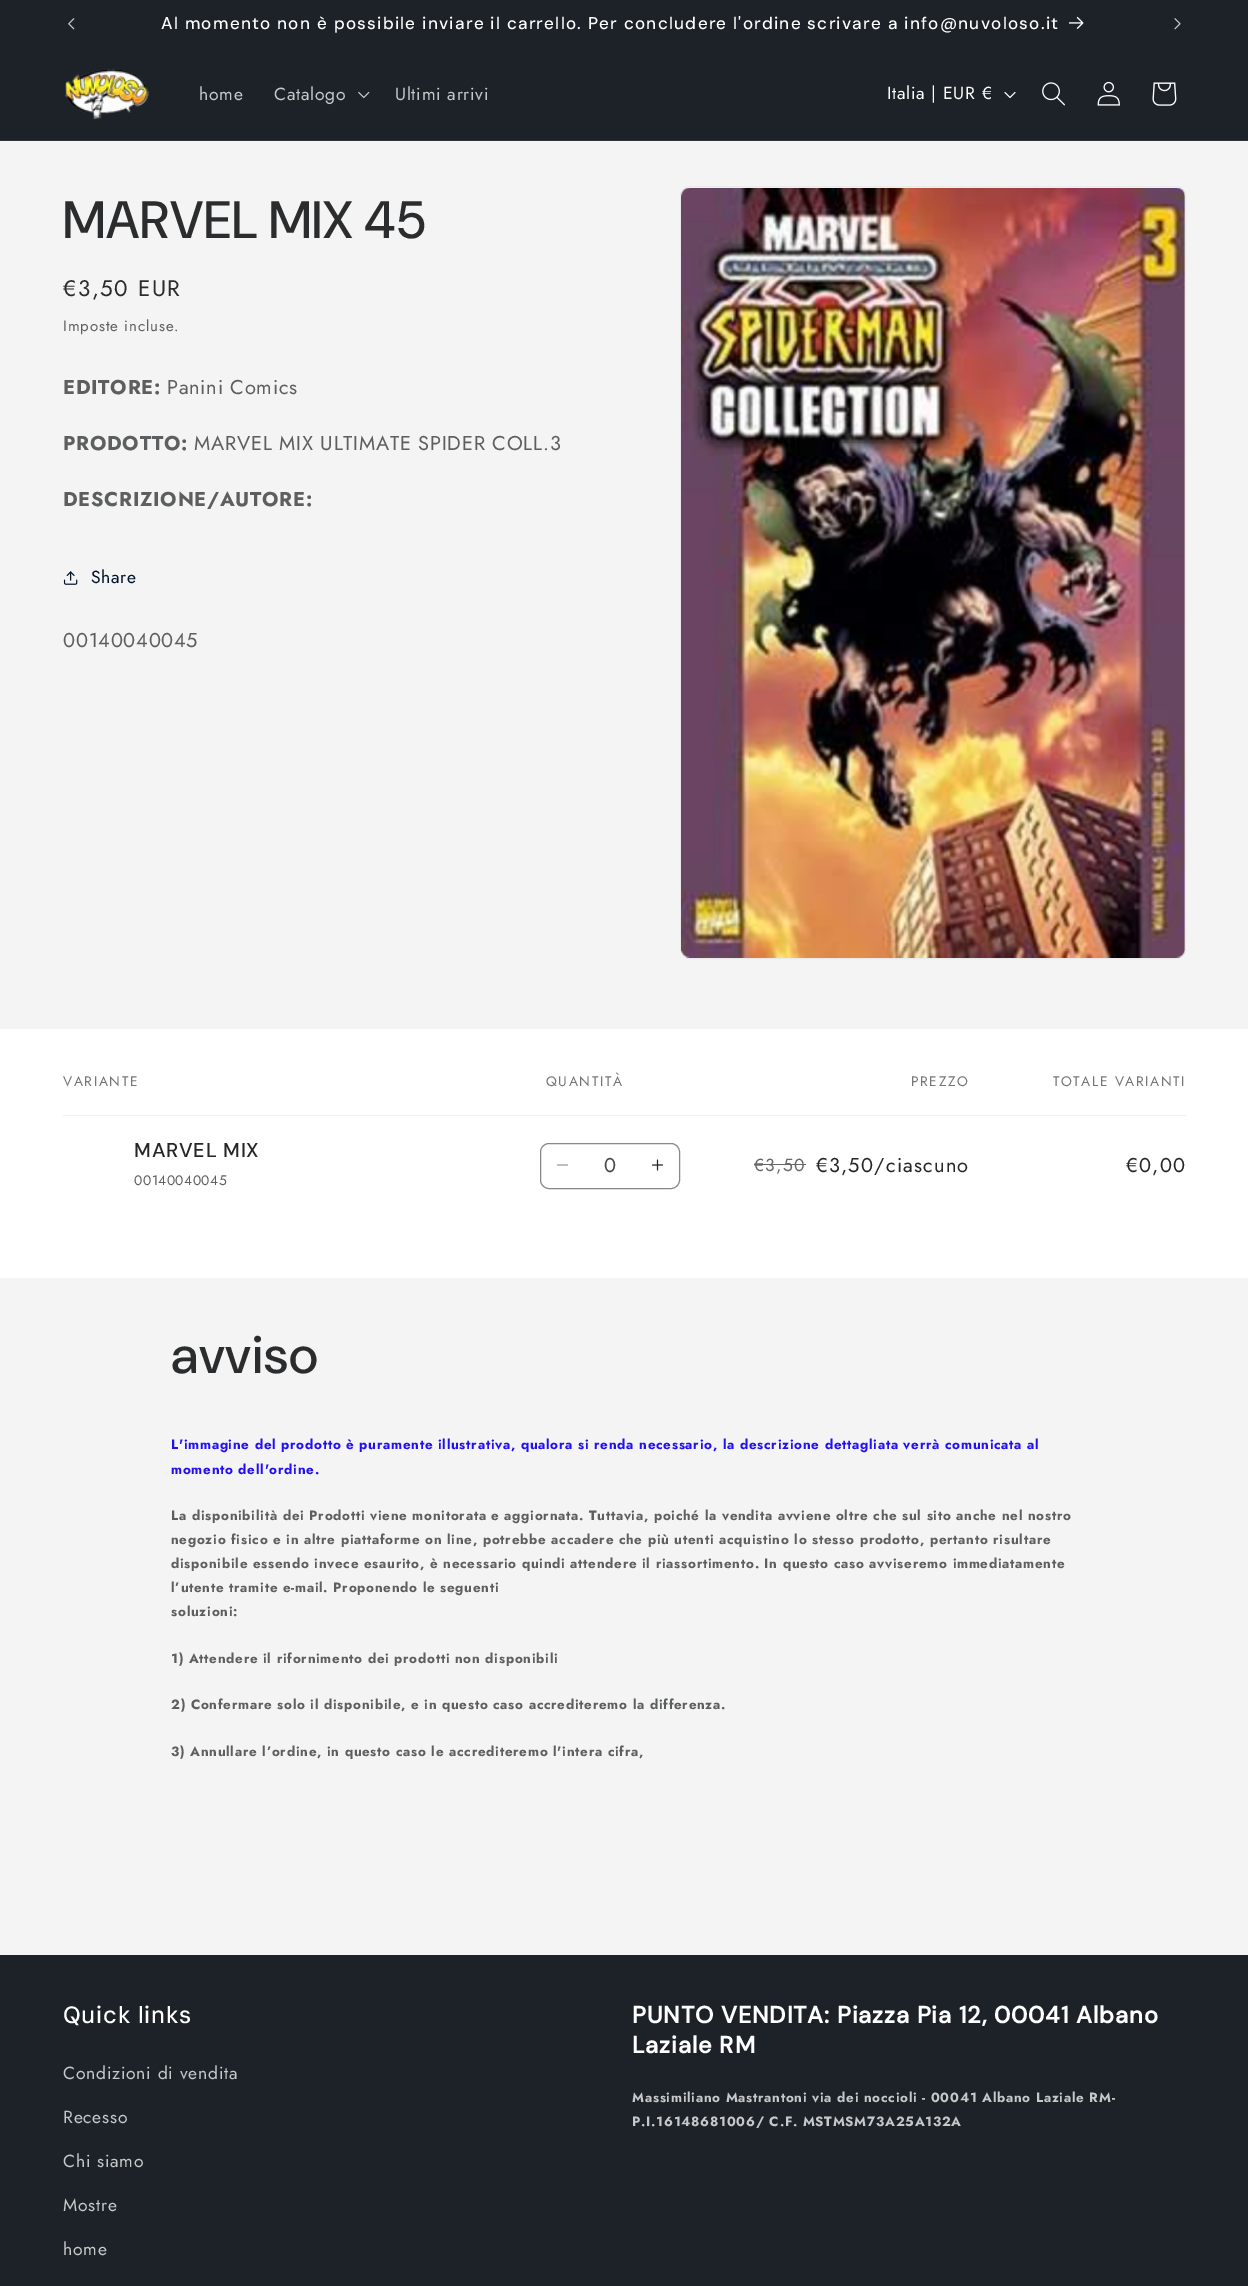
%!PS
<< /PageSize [1248 2286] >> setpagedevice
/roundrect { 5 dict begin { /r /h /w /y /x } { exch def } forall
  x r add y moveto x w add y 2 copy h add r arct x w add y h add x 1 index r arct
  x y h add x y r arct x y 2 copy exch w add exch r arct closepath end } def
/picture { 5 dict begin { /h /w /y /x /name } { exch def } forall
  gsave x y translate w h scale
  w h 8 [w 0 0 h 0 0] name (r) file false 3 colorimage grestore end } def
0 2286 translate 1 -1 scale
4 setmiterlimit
0.957 setgray
0 0 1248 2286 rectfill
0.11 0.133 0.157 setrgbcolor
0 0 1248 140 rectfill
(img1.rgb) 68 18 7 12 picture
/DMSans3-Medium [17.05 0 0 -17.05 0 0] selectfont
1 setgray
161 29 moveto 1.25 0 (Al momento non è possibile inviare il carrello. Per concludere l'ordine scrivare a info@nuvoloso.it) ashow
(img2.rgb) 1069 16 15 13 picture
(img3.rgb) 1174 18 7 12 picture
0.18 0.204 0.224 setrgbcolor
0 140 1248 1 rectfill
(img4.rgb) 65 68 84 52 picture
/Jost-Regular [17.5 0 0 -17.5 0 0] selectfont
0.776 0.784 0.788 setrgbcolor
199 100 moveto 0.75 0 (home) ashow
274 100 moveto 0.75 0 (Catalogo) ashow
(img5.rgb) 358 91 12 8 picture
395 100 moveto 0.75 0 (Ultimi arrivi) ashow
1 setgray
887 99 moveto 0.75 0 (Italia | EUR €) ashow
(img6.rgb) 1004 92 12 6 picture
(img7.rgb) 1042 82 23 24 picture
(img8.rgb) 1097 81 23 25 picture
(img9.rgb) 1152 82 25 24 picture
/DMSans-Medium [52.5 0 0 -52.5 0 0] selectfont
0.169 0.173 0.176 setrgbcolor
63 238 moveto 0.8 0 (MARVEL MIX 45) ashow
/Jost-Regular [22.5 0 0 -22.5 0 0] selectfont
63 296 moveto 1.6 0 (€3,50 EUR) ashow
/Jost-Regular [15 0 0 -15 0 0] selectfont
0.365 0.369 0.373 setrgbcolor
63 331 moveto 0.9 0 (Imposte incluse.) ashow
/Jost-Bold [20 0 0 -20 0 0] selectfont
63 394 moveto 0.75 0 (EDITORE:) ashow
/Jost-Regular [20 0 0 -20 0 0] selectfont
167 394 moveto 0.75 0 (Panini Comics) ashow
/Jost-Bold [20 0 0 -20 0 0] selectfont
63 450 moveto 0.75 0 (PRODOTTO:) ashow
/Jost-Regular [20 0 0 -20 0 0] selectfont
194 450 moveto 0.75 0 (MARVEL MIX ULTIMATE SPIDER COLL.3) ashow
/Jost-Bold [20 0 0 -20 0 0] selectfont
63 506 moveto 0.75 0 (DESCRIZIONE/AUTORE:) ashow
(img10.rgb) 63 571 15 14 picture
/Jost-Regular [17.5 0 0 -17.5 0 0] selectfont
0 0.067 0.157 setrgbcolor
91 583 moveto 0.75 0 (Share) ashow
/Jost-Regular [20 0 0 -20 0 0] selectfont
0.365 0.369 0.373 setrgbcolor
63 647 moveto 0.75 0 (00140040045) ashow
0.918 setgray
680.5 186.5 505 772 9.5 roundrect stroke
(img11.rgb) 681 188 504 770 picture
1 setgray
0 1029 1248 249 rectfill
0.941 setgray
63 1115 1123 1 rectfill
/Jost-Regular [13.75 0 0 -13.75 0 0] selectfont
0.459 setgray
63 1086 moveto 1.6 0 (VARIANTE) ashow
546 1086 moveto 1.6 0 (QUANTITÀ) ashow
911 1086 moveto 1.6 0 (PREZZO) ashow
1053 1086 moveto 1.6 0 (TOTALE VARIANTI) ashow
/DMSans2-Medium [20 0 0 -20 0 0] selectfont
0.149 setgray
134 1157 moveto 0.75 0 (MARVEL MIX) ashow
/Jost-Regular [13.75 0 0 -13.75 0 0] selectfont
0.365 0.369 0.373 setrgbcolor
134 1185 moveto 0.5 0 (00140040045) ashow
(img12.rgb) 557 1164 11 2 picture
(img13.rgb) 652 1159 12 12 picture
0.533 setgray
540.5 1143.5 139 45 8.5 roundrect stroke
/Jost-Regular [20 0 0 -20 0 0] selectfont
0.278 setgray
604 1172 moveto (0) show
/Jost-Regular [17.5 0 0 -17.5 0 0] selectfont
0.404 setgray
754 1171 moveto 1.25 0 (€3,50) ashow
754 1164 52 1 rectfill
/Jost-Regular [20 0 0 -20 0 0] selectfont
0.149 setgray
816 1172 moveto 1.25 0 (€3,50/ciascuno) ashow
1126 1172 moveto 1.25 0 (€0,00) ashow
/DMSans-Medium [52.5 0 0 -52.5 0 0] selectfont
0.169 0.173 0.176 setrgbcolor
171 1373 moveto 0.8 0 (avviso) ashow
/Jost-Bold [13.4 0 0 -13.4 0 0] selectfont
0.129 0.059 0.969 setrgbcolor
171 1449 moveto 0.75 0 (L'immagine del prodotto è puramente illustrativa, qualora si renda necessario, la descrizione dettagliata verrà comunicata al) ashow
171 1474 moveto 0.75 0 (momento dell'ordine.) ashow
0.365 0.369 0.373 setrgbcolor
171 1520 moveto 0.75 0 (La disponibilità dei Prodotti viene monitorata e aggiornata. Tuttavia, poiché la vendita avviene oltre che sul sito anche nel nostro) ashow
171 1544 moveto 0.75 0 (negozio fisico e in altre piattaforme on line, potrebbe accadere che più utenti acquistino lo stesso prodotto, pertanto risultare) ashow
171 1568 moveto 0.75 0 (disponibile essendo invece esaurito, è necessario quindi attendere il riassortimento. In questo caso avviseremo immediatamente) ashow
171 1592 moveto 0.75 0 (l’utente tramite e-mail. Proponendo le seguenti) ashow
171 1616 moveto 0.75 0 (soluzioni:) ashow
171 1663 moveto 0.75 0 (1\) Attendere il rifornimento dei prodotti non disponibili) ashow
171 1709 moveto 0.75 0 (2\) Confermare solo il disponibile, e in questo caso accrediteremo la differenza.) ashow
171 1756 moveto 0.75 0 (3\) Annullare l’ordine, in questo caso le accrediteremo l'intera cifra,) ashow
0.11 0.133 0.157 setrgbcolor
0 1955 1248 331 rectfill
/DMSans2-Medium [23.6 0 0 -23.6 0 0] selectfont
1 setgray
63 2023 moveto 0.8 0 (Quick links) ashow
/Jost-Regular [17.5 0 0 -17.5 0 0] selectfont
0.776 0.784 0.788 setrgbcolor
63 2079 moveto 0.75 0 (Condizioni di vendita) ashow
63 2123 moveto 0.75 0 (Recesso) ashow
63 2167 moveto 0.75 0 (Chi siamo) ashow
63 2211 moveto 0.75 0 (Mostre) ashow
63 2255 moveto 0.75 0 (home) ashow
/DMSans-Bold [23.6 0 0 -23.6 0 0] selectfont
1 setgray
632 2023 moveto 0.8 0 (PUNTO VENDITA: Piazza Pia 12, 00041 Albano) ashow
632 2053 moveto 0.8 0 (Laziale RM) ashow
/Jost-Bold [13.4 0 0 -13.4 0 0] selectfont
0.776 0.784 0.788 setrgbcolor
632 2102 moveto 0.75 0 (Massimiliano Mastrantoni via dei noccioli - 00041 Albano Laziale RM-) ashow
632 2126 moveto 0.75 0 (P.I.16148681006/ C.F. MSTMSM73A25A132A) ashow
showpage
